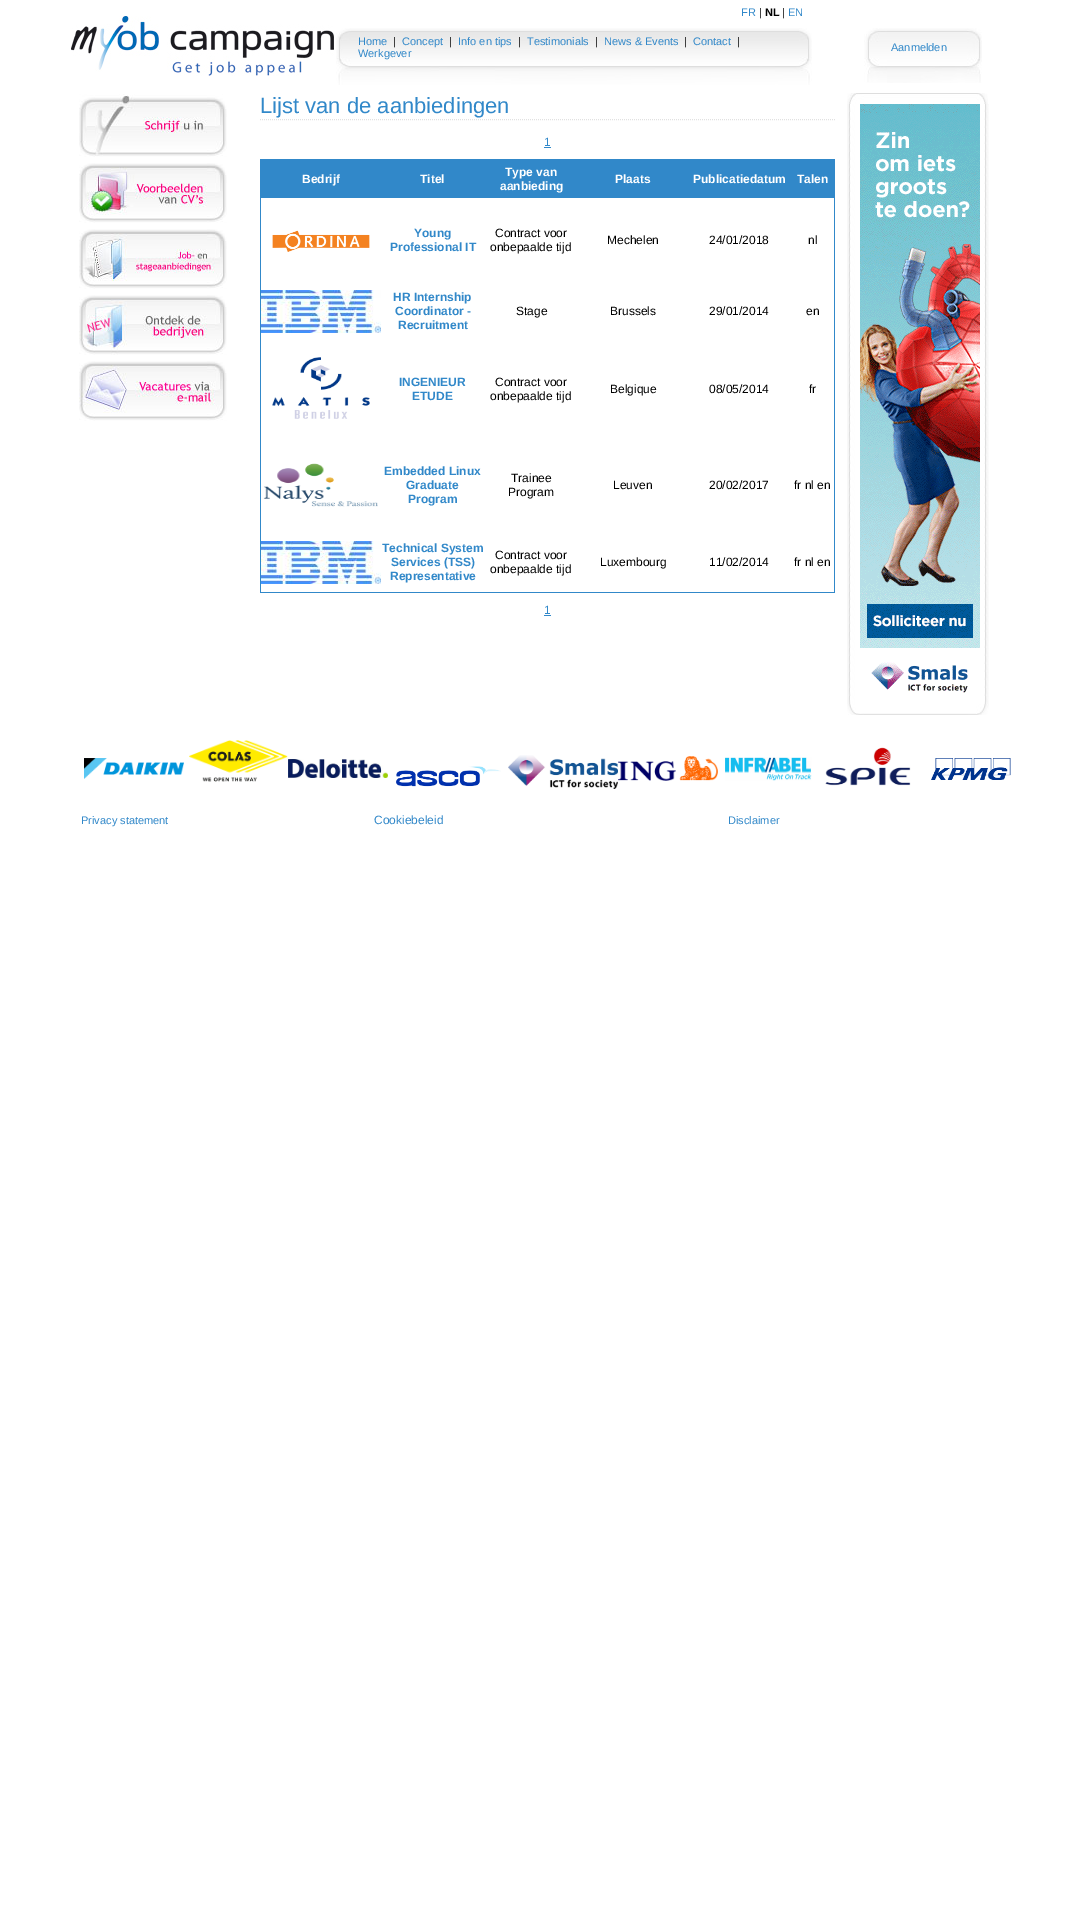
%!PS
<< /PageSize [1077 1920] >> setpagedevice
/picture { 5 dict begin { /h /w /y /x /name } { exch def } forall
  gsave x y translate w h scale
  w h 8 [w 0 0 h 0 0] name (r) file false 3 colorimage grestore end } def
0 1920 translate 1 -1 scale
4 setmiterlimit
1 setgray
0 0 1077 1920 rectfill
/LiberationSans-Regular [11 0 0 -11 0 0] selectfont
0.192 0.533 0.788 setrgbcolor
741 16 moveto (FR) show
0 setgray
759 16 moveto (|) show
/LiberationSans-Bold [11 0 0 -11 0 0] selectfont
765 16 moveto (NL) show
/LiberationSans-Regular [11 0 0 -11 0 0] selectfont
782 16 moveto (|) show
0.192 0.533 0.788 setrgbcolor
788 16 moveto (EN) show
(img1.rgb) 71 16 263 60 picture
(img2.rgb) 336 28 476 57 picture
358 45 moveto (Home) show
0 setgray
393 45 moveto (|) show
0.192 0.533 0.788 setrgbcolor
402 45 moveto (Concept) show
0 setgray
449 45 moveto (|) show
0.192 0.533 0.788 setrgbcolor
458 45 moveto (Info en tips) show
0 setgray
518 45 moveto (|) show
0.192 0.533 0.788 setrgbcolor
527 45 moveto (Testimonials) show
0 setgray
595 45 moveto (|) show
0.192 0.533 0.788 setrgbcolor
604 45 moveto (News & Events) show
0 setgray
684 45 moveto (|) show
0.192 0.533 0.788 setrgbcolor
693 45 moveto (Contact) show
0 setgray
737 45 moveto (|) show
0.192 0.533 0.788 setrgbcolor
358 57 moveto (Werkgever) show
(img3.rgb) 864 28 118 55 picture
891 51 moveto (Aanmelden) show
(img4.rgb) 79 94 148 63 picture
(img5.rgb) 79 163 148 60 picture
(img6.rgb) 79 229 148 60 picture
(img7.rgb) 79 295 148 60 picture
(img8.rgb) 79 361 148 60 picture
0.882 setgray
[1 1] 0 setdash
newpath 260 119.5 moveto 835 119.5 lineto stroke
/LiberationSans-Regular [22 0 0 -22 0 0] selectfont
0.192 0.533 0.788 setrgbcolor
260 113 moveto (Lijst van de aanbiedingen) show
/LiberationSans-Regular [12 0 0 -12 0 0] selectfont
544 146 moveto (1) show
544 147 7 1 rectfill
260 159 575 1 rectfill
834 159 1 434 rectfill
260 592 575 1 rectfill
260 159 1 434 rectfill
261 160 573 38 rectfill
/LiberationSans-Bold [12 0 0 -12 0 0] selectfont
1 setgray
302 183 moveto (Bedrijf) show
420 183 moveto (Titel) show
505 176 moveto (Type van) show
500 190 moveto (aanbieding) show
615 183 moveto (Plaats) show
693 183 moveto (Publicatiedatum) show
797 183 moveto (Talen) show
(img9.rgb) 272 230 98 22 picture
0.192 0.533 0.788 setrgbcolor
414 237 moveto (Young) show
390 251 moveto (Professional IT) show
/LiberationSans-Regular [12 0 0 -12 0 0] selectfont
0 setgray
495 237 moveto (Contract voor) show
490 251 moveto (onbepaalde tijd) show
607 244 moveto (Mechelen) show
709 244 moveto (24/01/2018) show
808 244 moveto (nl) show
(img10.rgb) 261 290 120 43 picture
/LiberationSans-Bold [12 0 0 -12 0 0] selectfont
0.192 0.533 0.788 setrgbcolor
393 301 moveto (HR Internship) show
395 315 moveto (Coordinator -) show
398 329 moveto (Recruitment) show
/LiberationSans-Regular [12 0 0 -12 0 0] selectfont
0 setgray
516 315 moveto (Stage) show
610 315 moveto (Brussels) show
709 315 moveto (29/01/2014) show
806 315 moveto (en) show
(img11.rgb) 272 357 98 62 picture
/LiberationSans-Bold [12 0 0 -12 0 0] selectfont
0.192 0.533 0.788 setrgbcolor
399 386 moveto (INGENIEUR) show
412 400 moveto (ETUDE) show
/LiberationSans-Regular [12 0 0 -12 0 0] selectfont
0 setgray
495 386 moveto (Contract voor) show
490 400 moveto (onbepaalde tijd) show
610 393 moveto (Belgique) show
709 393 moveto (08/05/2014) show
809 393 moveto (fr) show
(img12.rgb) 263 463 115 44 picture
/LiberationSans-Bold [12 0 0 -12 0 0] selectfont
0.192 0.533 0.788 setrgbcolor
384 475 moveto (Embedded Linux) show
406 489 moveto (Graduate) show
408 503 moveto (Program) show
/LiberationSans-Regular [12 0 0 -12 0 0] selectfont
0 setgray
511 482 moveto (Trainee) show
508 496 moveto (Program) show
613 489 moveto (Leuven) show
709 489 moveto (20/02/2017) show
794 489 moveto (fr nl en) show
(img10.rgb) 261 541 120 43 picture
/LiberationSans-Bold [12 0 0 -12 0 0] selectfont
0.192 0.533 0.788 setrgbcolor
382 552 moveto (Technical System) show
391 566 moveto (Services \(TSS\)) show
390 580 moveto (Representative) show
/LiberationSans-Regular [12 0 0 -12 0 0] selectfont
0 setgray
495 559 moveto (Contract voor) show
490 573 moveto (onbepaalde tijd) show
600 566 moveto (Luxembourg) show
709 566 moveto (11/02/2014) show
794 566 moveto (fr nl en) show
0.192 0.533 0.788 setrgbcolor
544 614 moveto (1) show
544 615 7 1 rectfill
(img13.rgb) 847 93 141 11 picture
(img14.rgb) 847 104 142 600 picture
(img15.rgb) 860 104 120 589 picture
(img16.rgb) 847 704 142 11 picture
(img17.rgb) 84 758 100 21 picture
(img18.rgb) 189 740 99 42 picture
(img19.rgb) 288 759 100 19 picture
(img20.rgb) 396 766 105 21 picture
(img21.rgb) 508 755 110 34 picture
(img22.rgb) 618 756 100 25 picture
(img23.rgb) 725 757 87 24 picture
(img24.rgb) 825 747 86 39 picture
(img25.rgb) 931 758 80 22 picture
/LiberationSans-Regular [11 0 0 -11 0 0] selectfont
81 824 moveto (Privacy statement) show
/LiberationSans-Regular [12 0 0 -12 0 0] selectfont
374 824 moveto (Cookiebeleid) show
/LiberationSans-Regular [11 0 0 -11 0 0] selectfont
728 824 moveto (Disclaimer) show
showpage
